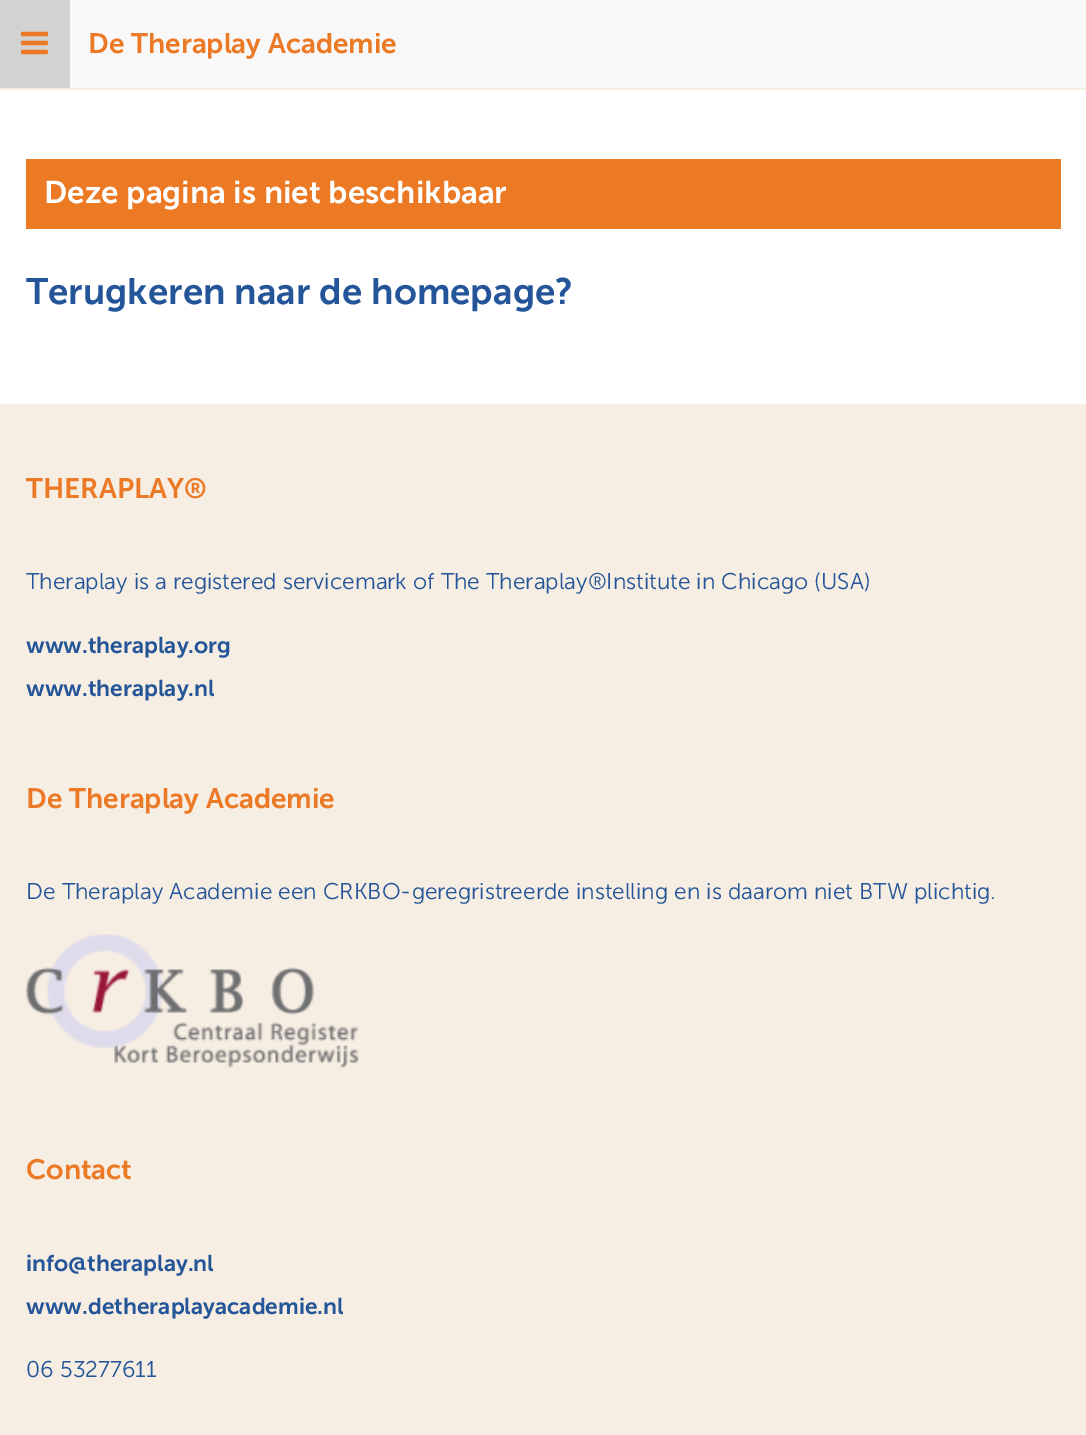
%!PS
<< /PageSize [1086 1435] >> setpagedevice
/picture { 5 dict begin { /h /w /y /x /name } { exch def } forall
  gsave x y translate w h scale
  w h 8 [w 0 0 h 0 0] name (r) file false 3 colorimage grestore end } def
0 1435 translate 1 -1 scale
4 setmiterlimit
1 setgray
0 0 1086 1435 rectfill
0.973 setgray
70 0 1016 88 rectfill
0.965 0.929 0.89 setrgbcolor
0 88 1086 2 rectfill
0.824 setgray
0 0 70 88 rectfill
(img1.rgb) 21 31 27 24 picture
/MuseoSans-SemiBold [28 0 0 -28 0 0] selectfont
0.925 0.475 0.145 setrgbcolor
88 53 moveto (De Theraplay Academie) show
0.925 0.475 0.137 setrgbcolor
26 159 1035 70 rectfill
/MuseoSans-SemiBold [31.5 0 0 -31.5 0 0] selectfont
1 setgray
44 203 moveto (Deze pagina is niet beschikbaar) show
/MuseoSans-SemiBold [36.75 0 0 -36.75 0 0] selectfont
0.137 0.333 0.596 setrgbcolor
26 304 moveto (Terugkeren naar de homepage?) show
0.965 0.929 0.89 setrgbcolor
0 404 1086 1031 rectfill
/MuseoSans-SemiBold [28 0 0 -28 0 0] selectfont
0.925 0.475 0.145 setrgbcolor
26 498 moveto (THERAPLAY®) show
/MuseoSans-Light [22.75 0 0 -22.75 0 0] selectfont
0.137 0.333 0.596 setrgbcolor
26 589 moveto (Theraplay is a registered servicemark of The Theraplay®Institute in Chicago \(USA\)) show
/MuseoSans-SemiBold [22.75 0 0 -22.75 0 0] selectfont
26 653 moveto (www.theraplay.org) show
26 696 moveto (www.theraplay.nl) show
/MuseoSans-SemiBold [28 0 0 -28 0 0] selectfont
0.925 0.475 0.145 setrgbcolor
26 808 moveto (De Theraplay Academie) show
/MuseoSans-Light [22.75 0 0 -22.75 0 0] selectfont
0.137 0.333 0.596 setrgbcolor
26 899 moveto (De Theraplay Academie een CRKBO-geregristreerde instelling en is daarom niet BTW plichtig.) show
(img2.rgb) 26 934 333 134 picture
/MuseoSans-SemiBold [28 0 0 -28 0 0] selectfont
0.925 0.475 0.145 setrgbcolor
26 1179 moveto (Contact) show
/MuseoSans-SemiBold [22.75 0 0 -22.75 0 0] selectfont
0.137 0.333 0.596 setrgbcolor
26 1271 moveto (info@theraplay.nl) show
26 1314 moveto (www.detheraplayacademie.nl) show
/MuseoSans-Light [22.75 0 0 -22.75 0 0] selectfont
26 1377 moveto (06 53277611) show
showpage
